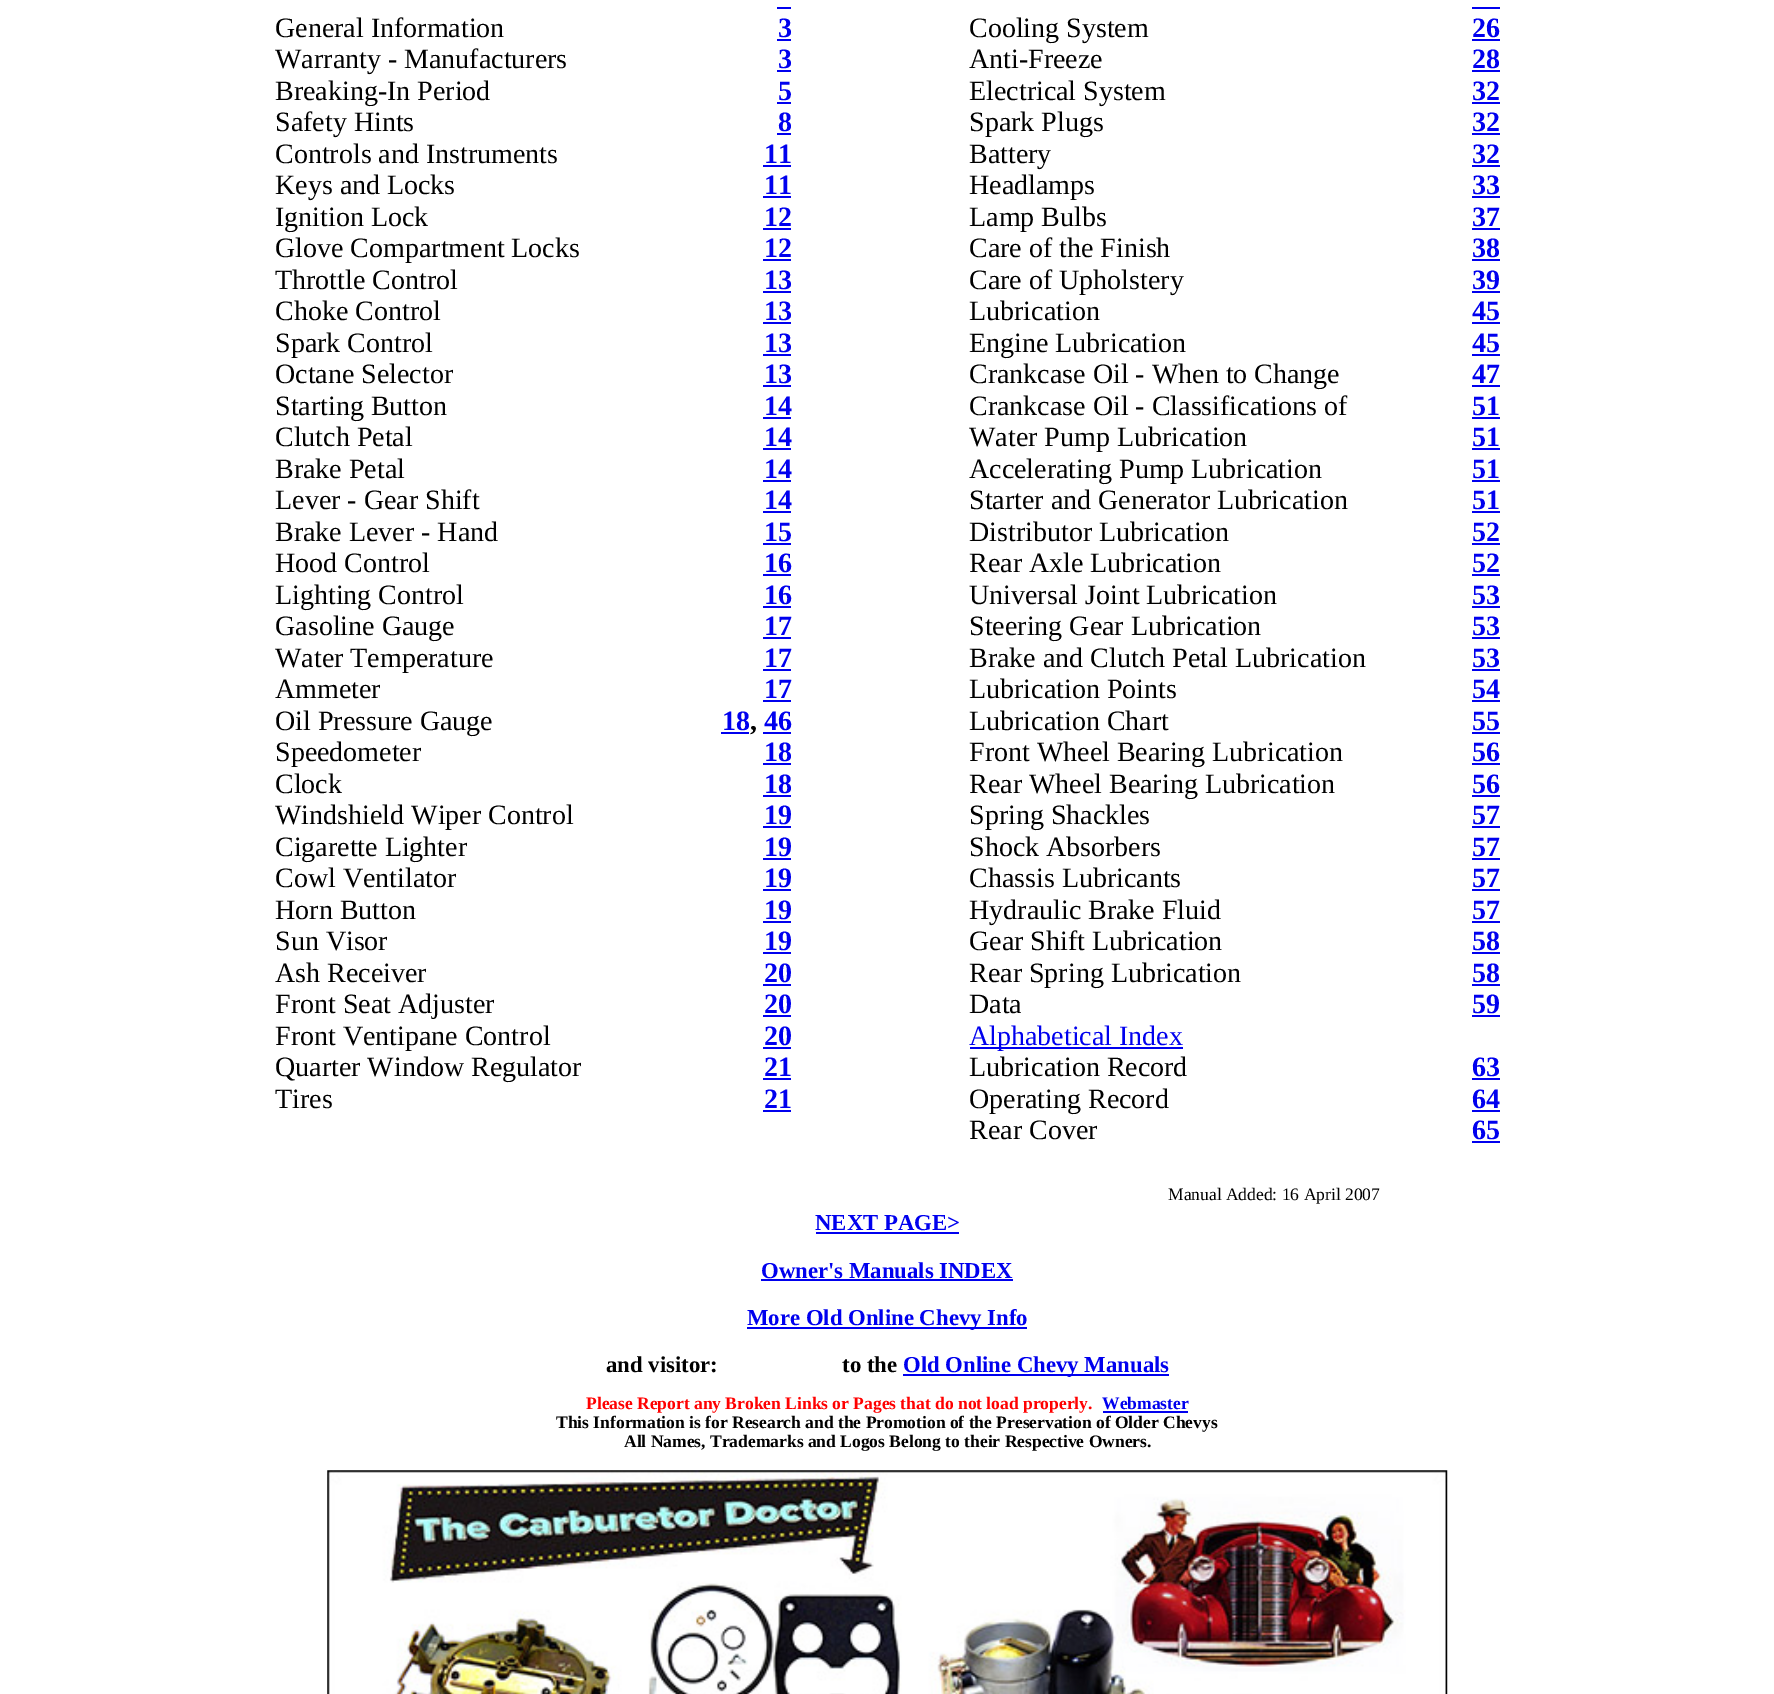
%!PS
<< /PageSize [1774 1694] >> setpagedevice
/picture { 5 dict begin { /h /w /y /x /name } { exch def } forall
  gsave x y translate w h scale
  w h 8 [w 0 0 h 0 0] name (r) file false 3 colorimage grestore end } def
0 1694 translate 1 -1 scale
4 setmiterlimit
1 setgray
0 0 1774 1694 rectfill
0 0 0.933 setrgbcolor
777 7 14 2 rectfill
1472 7 28 2 rectfill
/LiberationSerif-Regular [28 0 0 -28 0 0] selectfont
0 setgray
275 37 moveto (General Information) show
/LiberationSerif-Bold [28 0 0 -28 0 0] selectfont
0 0 0.933 setrgbcolor
778 37 moveto (3) show
777 39 14 2 rectfill
/LiberationSerif-Regular [28 0 0 -28 0 0] selectfont
0 setgray
969 37 moveto (Cooling System) show
/LiberationSerif-Bold [28 0 0 -28 0 0] selectfont
0 0 0.933 setrgbcolor
1472 37 moveto (26) show
1472 39 28 2 rectfill
/LiberationSerif-Regular [28 0 0 -28 0 0] selectfont
0 setgray
275 68 moveto (Warranty - Manufacturers) show
/LiberationSerif-Bold [28 0 0 -28 0 0] selectfont
0 0 0.933 setrgbcolor
778 68 moveto (3) show
777 70 14 2 rectfill
/LiberationSerif-Regular [28 0 0 -28 0 0] selectfont
0 setgray
969 68 moveto (Anti-Freeze) show
/LiberationSerif-Bold [28 0 0 -28 0 0] selectfont
0 0 0.933 setrgbcolor
1472 68 moveto (28) show
1472 70 28 2 rectfill
/LiberationSerif-Regular [28 0 0 -28 0 0] selectfont
0 setgray
275 100 moveto (Breaking-In Period) show
/LiberationSerif-Bold [28 0 0 -28 0 0] selectfont
0 0 0.933 setrgbcolor
778 100 moveto (5) show
777 102 14 2 rectfill
/LiberationSerif-Regular [28 0 0 -28 0 0] selectfont
0 setgray
969 100 moveto (Electrical System) show
/LiberationSerif-Bold [28 0 0 -28 0 0] selectfont
0 0 0.933 setrgbcolor
1472 100 moveto (32) show
1472 102 28 2 rectfill
/LiberationSerif-Regular [28 0 0 -28 0 0] selectfont
0 setgray
275 131 moveto (Safety Hints) show
/LiberationSerif-Bold [28 0 0 -28 0 0] selectfont
0 0 0.933 setrgbcolor
778 131 moveto (8) show
777 133 14 2 rectfill
/LiberationSerif-Regular [28 0 0 -28 0 0] selectfont
0 setgray
969 131 moveto (Spark Plugs) show
/LiberationSerif-Bold [28 0 0 -28 0 0] selectfont
0 0 0.933 setrgbcolor
1472 131 moveto (32) show
1472 133 28 2 rectfill
/LiberationSerif-Regular [28 0 0 -28 0 0] selectfont
0 setgray
275 163 moveto (Controls and Instruments) show
/LiberationSerif-Bold [28 0 0 -28 0 0] selectfont
0 0 0.933 setrgbcolor
764 163 moveto (11) show
763 165 28 2 rectfill
/LiberationSerif-Regular [28 0 0 -28 0 0] selectfont
0 setgray
969 163 moveto (Battery) show
/LiberationSerif-Bold [28 0 0 -28 0 0] selectfont
0 0 0.933 setrgbcolor
1472 163 moveto (32) show
1472 165 28 2 rectfill
/LiberationSerif-Regular [28 0 0 -28 0 0] selectfont
0 setgray
275 194 moveto (Keys and Locks) show
/LiberationSerif-Bold [28 0 0 -28 0 0] selectfont
0 0 0.933 setrgbcolor
764 194 moveto (11) show
763 196 28 2 rectfill
/LiberationSerif-Regular [28 0 0 -28 0 0] selectfont
0 setgray
969 194 moveto (Headlamps) show
/LiberationSerif-Bold [28 0 0 -28 0 0] selectfont
0 0 0.933 setrgbcolor
1472 194 moveto (33) show
1472 196 28 2 rectfill
/LiberationSerif-Regular [28 0 0 -28 0 0] selectfont
0 setgray
275 226 moveto (Ignition Lock) show
/LiberationSerif-Bold [28 0 0 -28 0 0] selectfont
0 0 0.933 setrgbcolor
764 226 moveto (12) show
763 228 28 2 rectfill
/LiberationSerif-Regular [28 0 0 -28 0 0] selectfont
0 setgray
969 226 moveto (Lamp Bulbs) show
/LiberationSerif-Bold [28 0 0 -28 0 0] selectfont
0 0 0.933 setrgbcolor
1472 226 moveto (37) show
1472 228 28 2 rectfill
/LiberationSerif-Regular [28 0 0 -28 0 0] selectfont
0 setgray
275 257 moveto (Glove Compartment Locks) show
/LiberationSerif-Bold [28 0 0 -28 0 0] selectfont
0 0 0.933 setrgbcolor
764 257 moveto (12) show
763 259 28 2 rectfill
/LiberationSerif-Regular [28 0 0 -28 0 0] selectfont
0 setgray
969 257 moveto (Care of the Finish) show
/LiberationSerif-Bold [28 0 0 -28 0 0] selectfont
0 0 0.933 setrgbcolor
1472 257 moveto (38) show
1472 259 28 2 rectfill
/LiberationSerif-Regular [28 0 0 -28 0 0] selectfont
0 setgray
275 289 moveto (Throttle Control) show
/LiberationSerif-Bold [28 0 0 -28 0 0] selectfont
0 0 0.933 setrgbcolor
764 289 moveto (13) show
763 291 28 2 rectfill
/LiberationSerif-Regular [28 0 0 -28 0 0] selectfont
0 setgray
969 289 moveto (Care of Upholstery) show
/LiberationSerif-Bold [28 0 0 -28 0 0] selectfont
0 0 0.933 setrgbcolor
1472 289 moveto (39) show
1472 291 28 2 rectfill
/LiberationSerif-Regular [28 0 0 -28 0 0] selectfont
0 setgray
275 320 moveto (Choke Control) show
/LiberationSerif-Bold [28 0 0 -28 0 0] selectfont
0 0 0.933 setrgbcolor
764 320 moveto (13) show
763 322 28 2 rectfill
/LiberationSerif-Regular [28 0 0 -28 0 0] selectfont
0 setgray
969 320 moveto (Lubrication) show
/LiberationSerif-Bold [28 0 0 -28 0 0] selectfont
0 0 0.933 setrgbcolor
1472 320 moveto (45) show
1472 322 28 2 rectfill
/LiberationSerif-Regular [28 0 0 -28 0 0] selectfont
0 setgray
275 352 moveto (Spark Control) show
/LiberationSerif-Bold [28 0 0 -28 0 0] selectfont
0 0 0.933 setrgbcolor
764 352 moveto (13) show
763 354 28 2 rectfill
/LiberationSerif-Regular [28 0 0 -28 0 0] selectfont
0 setgray
969 352 moveto (Engine Lubrication) show
/LiberationSerif-Bold [28 0 0 -28 0 0] selectfont
0 0 0.933 setrgbcolor
1472 352 moveto (45) show
1472 354 28 2 rectfill
/LiberationSerif-Regular [28 0 0 -28 0 0] selectfont
0 setgray
275 383 moveto (Octane Selector) show
/LiberationSerif-Bold [28 0 0 -28 0 0] selectfont
0 0 0.933 setrgbcolor
764 383 moveto (13) show
763 385 28 2 rectfill
/LiberationSerif-Regular [28 0 0 -28 0 0] selectfont
0 setgray
969 383 moveto (Crankcase Oil - When to Change) show
/LiberationSerif-Bold [28 0 0 -28 0 0] selectfont
0 0 0.933 setrgbcolor
1472 383 moveto (47) show
1472 385 28 2 rectfill
/LiberationSerif-Regular [28 0 0 -28 0 0] selectfont
0 setgray
275 415 moveto (Starting Button) show
/LiberationSerif-Bold [28 0 0 -28 0 0] selectfont
0 0 0.933 setrgbcolor
764 415 moveto (14) show
763 417 28 2 rectfill
/LiberationSerif-Regular [28 0 0 -28 0 0] selectfont
0 setgray
969 415 moveto (Crankcase Oil - Classifications of) show
/LiberationSerif-Bold [28 0 0 -28 0 0] selectfont
0 0 0.933 setrgbcolor
1472 415 moveto (51) show
1472 417 28 2 rectfill
/LiberationSerif-Regular [28 0 0 -28 0 0] selectfont
0 setgray
275 446 moveto (Clutch Petal) show
/LiberationSerif-Bold [28 0 0 -28 0 0] selectfont
0 0 0.933 setrgbcolor
764 446 moveto (14) show
763 448 28 2 rectfill
/LiberationSerif-Regular [28 0 0 -28 0 0] selectfont
0 setgray
969 446 moveto (Water Pump Lubrication) show
/LiberationSerif-Bold [28 0 0 -28 0 0] selectfont
0 0 0.933 setrgbcolor
1472 446 moveto (51) show
1472 448 28 2 rectfill
/LiberationSerif-Regular [28 0 0 -28 0 0] selectfont
0 setgray
275 478 moveto (Brake Petal) show
/LiberationSerif-Bold [28 0 0 -28 0 0] selectfont
0 0 0.933 setrgbcolor
764 478 moveto (14) show
763 480 28 2 rectfill
/LiberationSerif-Regular [28 0 0 -28 0 0] selectfont
0 setgray
969 478 moveto (Accelerating Pump Lubrication) show
/LiberationSerif-Bold [28 0 0 -28 0 0] selectfont
0 0 0.933 setrgbcolor
1472 478 moveto (51) show
1472 480 28 2 rectfill
/LiberationSerif-Regular [28 0 0 -28 0 0] selectfont
0 setgray
275 509 moveto (Lever - Gear Shift) show
/LiberationSerif-Bold [28 0 0 -28 0 0] selectfont
0 0 0.933 setrgbcolor
764 509 moveto (14) show
763 511 28 2 rectfill
/LiberationSerif-Regular [28 0 0 -28 0 0] selectfont
0 setgray
969 509 moveto (Starter and Generator Lubrication) show
/LiberationSerif-Bold [28 0 0 -28 0 0] selectfont
0 0 0.933 setrgbcolor
1472 509 moveto (51) show
1472 511 28 2 rectfill
/LiberationSerif-Regular [28 0 0 -28 0 0] selectfont
0 setgray
275 541 moveto (Brake Lever - Hand) show
/LiberationSerif-Bold [28 0 0 -28 0 0] selectfont
0 0 0.933 setrgbcolor
764 541 moveto (15) show
763 543 28 2 rectfill
/LiberationSerif-Regular [28 0 0 -28 0 0] selectfont
0 setgray
969 541 moveto (Distributor Lubrication) show
/LiberationSerif-Bold [28 0 0 -28 0 0] selectfont
0 0 0.933 setrgbcolor
1472 541 moveto (52) show
1472 543 28 2 rectfill
/LiberationSerif-Regular [28 0 0 -28 0 0] selectfont
0 setgray
275 572 moveto (Hood Control) show
/LiberationSerif-Bold [28 0 0 -28 0 0] selectfont
0 0 0.933 setrgbcolor
764 572 moveto (16) show
763 574 28 2 rectfill
/LiberationSerif-Regular [28 0 0 -28 0 0] selectfont
0 setgray
969 572 moveto (Rear Axle Lubrication) show
/LiberationSerif-Bold [28 0 0 -28 0 0] selectfont
0 0 0.933 setrgbcolor
1472 572 moveto (52) show
1472 574 28 2 rectfill
/LiberationSerif-Regular [28 0 0 -28 0 0] selectfont
0 setgray
275 604 moveto (Lighting Control) show
/LiberationSerif-Bold [28 0 0 -28 0 0] selectfont
0 0 0.933 setrgbcolor
764 604 moveto (16) show
763 606 28 2 rectfill
/LiberationSerif-Regular [28 0 0 -28 0 0] selectfont
0 setgray
969 604 moveto (Universal Joint Lubrication) show
/LiberationSerif-Bold [28 0 0 -28 0 0] selectfont
0 0 0.933 setrgbcolor
1472 604 moveto (53) show
1472 606 28 2 rectfill
/LiberationSerif-Regular [28 0 0 -28 0 0] selectfont
0 setgray
275 635 moveto (Gasoline Gauge) show
/LiberationSerif-Bold [28 0 0 -28 0 0] selectfont
0 0 0.933 setrgbcolor
764 635 moveto (17) show
763 637 28 2 rectfill
/LiberationSerif-Regular [28 0 0 -28 0 0] selectfont
0 setgray
969 635 moveto (Steering Gear Lubrication) show
/LiberationSerif-Bold [28 0 0 -28 0 0] selectfont
0 0 0.933 setrgbcolor
1472 635 moveto (53) show
1472 637 28 2 rectfill
/LiberationSerif-Regular [28 0 0 -28 0 0] selectfont
0 setgray
275 667 moveto (Water Temperature) show
/LiberationSerif-Bold [28 0 0 -28 0 0] selectfont
0 0 0.933 setrgbcolor
764 667 moveto (17) show
763 669 28 2 rectfill
/LiberationSerif-Regular [28 0 0 -28 0 0] selectfont
0 setgray
969 667 moveto (Brake and Clutch Petal Lubrication) show
/LiberationSerif-Bold [28 0 0 -28 0 0] selectfont
0 0 0.933 setrgbcolor
1472 667 moveto (53) show
1472 669 28 2 rectfill
/LiberationSerif-Regular [28 0 0 -28 0 0] selectfont
0 setgray
275 698 moveto (Ammeter) show
/LiberationSerif-Bold [28 0 0 -28 0 0] selectfont
0 0 0.933 setrgbcolor
764 698 moveto (17) show
763 700 28 2 rectfill
/LiberationSerif-Regular [28 0 0 -28 0 0] selectfont
0 setgray
969 698 moveto (Lubrication Points) show
/LiberationSerif-Bold [28 0 0 -28 0 0] selectfont
0 0 0.933 setrgbcolor
1472 698 moveto (54) show
1472 700 28 2 rectfill
/LiberationSerif-Regular [28 0 0 -28 0 0] selectfont
0 setgray
275 730 moveto (Oil Pressure Gauge) show
/LiberationSerif-Bold [28 0 0 -28 0 0] selectfont
0 0 0.933 setrgbcolor
722 730 moveto (18) show
0 setgray
750 730 moveto (,) show
0 0 0.933 setrgbcolor
721 732 28 2 rectfill
763 732 28 2 rectfill
764 730 moveto (46) show
/LiberationSerif-Regular [28 0 0 -28 0 0] selectfont
0 setgray
969 730 moveto (Lubrication Chart) show
/LiberationSerif-Bold [28 0 0 -28 0 0] selectfont
0 0 0.933 setrgbcolor
1472 730 moveto (55) show
1472 732 28 2 rectfill
/LiberationSerif-Regular [28 0 0 -28 0 0] selectfont
0 setgray
275 761 moveto (Speedometer) show
/LiberationSerif-Bold [28 0 0 -28 0 0] selectfont
0 0 0.933 setrgbcolor
764 761 moveto (18) show
763 763 28 2 rectfill
/LiberationSerif-Regular [28 0 0 -28 0 0] selectfont
0 setgray
969 761 moveto (Front Wheel Bearing Lubrication) show
/LiberationSerif-Bold [28 0 0 -28 0 0] selectfont
0 0 0.933 setrgbcolor
1472 761 moveto (56) show
1472 763 28 2 rectfill
/LiberationSerif-Regular [28 0 0 -28 0 0] selectfont
0 setgray
275 793 moveto (Clock) show
/LiberationSerif-Bold [28 0 0 -28 0 0] selectfont
0 0 0.933 setrgbcolor
764 793 moveto (18) show
763 795 28 2 rectfill
/LiberationSerif-Regular [28 0 0 -28 0 0] selectfont
0 setgray
969 793 moveto (Rear Wheel Bearing Lubrication) show
/LiberationSerif-Bold [28 0 0 -28 0 0] selectfont
0 0 0.933 setrgbcolor
1472 793 moveto (56) show
1472 795 28 2 rectfill
/LiberationSerif-Regular [28 0 0 -28 0 0] selectfont
0 setgray
275 824 moveto (Windshield Wiper Control) show
/LiberationSerif-Bold [28 0 0 -28 0 0] selectfont
0 0 0.933 setrgbcolor
764 824 moveto (19) show
763 826 28 2 rectfill
/LiberationSerif-Regular [28 0 0 -28 0 0] selectfont
0 setgray
969 824 moveto (Spring Shackles) show
/LiberationSerif-Bold [28 0 0 -28 0 0] selectfont
0 0 0.933 setrgbcolor
1472 824 moveto (57) show
1472 826 28 2 rectfill
/LiberationSerif-Regular [28 0 0 -28 0 0] selectfont
0 setgray
275 856 moveto (Cigarette Lighter) show
/LiberationSerif-Bold [28 0 0 -28 0 0] selectfont
0 0 0.933 setrgbcolor
764 856 moveto (19) show
763 858 28 2 rectfill
/LiberationSerif-Regular [28 0 0 -28 0 0] selectfont
0 setgray
969 856 moveto (Shock Absorbers) show
/LiberationSerif-Bold [28 0 0 -28 0 0] selectfont
0 0 0.933 setrgbcolor
1472 856 moveto (57) show
1472 858 28 2 rectfill
/LiberationSerif-Regular [28 0 0 -28 0 0] selectfont
0 setgray
275 887 moveto (Cowl Ventilator) show
/LiberationSerif-Bold [28 0 0 -28 0 0] selectfont
0 0 0.933 setrgbcolor
764 887 moveto (19) show
763 889 28 2 rectfill
/LiberationSerif-Regular [28 0 0 -28 0 0] selectfont
0 setgray
969 887 moveto (Chassis Lubricants) show
/LiberationSerif-Bold [28 0 0 -28 0 0] selectfont
0 0 0.933 setrgbcolor
1472 887 moveto (57) show
1472 889 28 2 rectfill
/LiberationSerif-Regular [28 0 0 -28 0 0] selectfont
0 setgray
275 919 moveto (Horn Button) show
/LiberationSerif-Bold [28 0 0 -28 0 0] selectfont
0 0 0.933 setrgbcolor
764 919 moveto (19) show
763 921 28 2 rectfill
/LiberationSerif-Regular [28 0 0 -28 0 0] selectfont
0 setgray
969 919 moveto (Hydraulic Brake Fluid) show
/LiberationSerif-Bold [28 0 0 -28 0 0] selectfont
0 0 0.933 setrgbcolor
1472 919 moveto (57) show
1472 921 28 2 rectfill
/LiberationSerif-Regular [28 0 0 -28 0 0] selectfont
0 setgray
275 950 moveto (Sun Visor) show
/LiberationSerif-Bold [28 0 0 -28 0 0] selectfont
0 0 0.933 setrgbcolor
764 950 moveto (19) show
763 952 28 2 rectfill
/LiberationSerif-Regular [28 0 0 -28 0 0] selectfont
0 setgray
969 950 moveto (Gear Shift Lubrication) show
/LiberationSerif-Bold [28 0 0 -28 0 0] selectfont
0 0 0.933 setrgbcolor
1472 950 moveto (58) show
1472 952 28 2 rectfill
/LiberationSerif-Regular [28 0 0 -28 0 0] selectfont
0 setgray
275 982 moveto (Ash Receiver) show
/LiberationSerif-Bold [28 0 0 -28 0 0] selectfont
0 0 0.933 setrgbcolor
764 982 moveto (20) show
763 984 28 2 rectfill
/LiberationSerif-Regular [28 0 0 -28 0 0] selectfont
0 setgray
969 982 moveto (Rear Spring Lubrication) show
/LiberationSerif-Bold [28 0 0 -28 0 0] selectfont
0 0 0.933 setrgbcolor
1472 982 moveto (58) show
1472 984 28 2 rectfill
/LiberationSerif-Regular [28 0 0 -28 0 0] selectfont
0 setgray
275 1013 moveto (Front Seat Adjuster) show
/LiberationSerif-Bold [28 0 0 -28 0 0] selectfont
0 0 0.933 setrgbcolor
764 1013 moveto (20) show
763 1015 28 2 rectfill
/LiberationSerif-Regular [28 0 0 -28 0 0] selectfont
0 setgray
969 1013 moveto (Data) show
/LiberationSerif-Bold [28 0 0 -28 0 0] selectfont
0 0 0.933 setrgbcolor
1472 1013 moveto (59) show
1472 1015 28 2 rectfill
/LiberationSerif-Regular [28 0 0 -28 0 0] selectfont
0 setgray
275 1045 moveto (Front Ventipane Control) show
/LiberationSerif-Bold [28 0 0 -28 0 0] selectfont
0 0 0.933 setrgbcolor
764 1045 moveto (20) show
763 1047 28 2 rectfill
970 1047 213 2 rectfill
/LiberationSerif-Regular [28 0 0 -28 0 0] selectfont
969 1045 moveto (Alphabetical Index) show
0 setgray
275 1076 moveto (Quarter Window Regulator) show
/LiberationSerif-Bold [28 0 0 -28 0 0] selectfont
0 0 0.933 setrgbcolor
764 1076 moveto (21) show
763 1078 28 2 rectfill
/LiberationSerif-Regular [28 0 0 -28 0 0] selectfont
0 setgray
969 1076 moveto (Lubrication Record) show
/LiberationSerif-Bold [28 0 0 -28 0 0] selectfont
0 0 0.933 setrgbcolor
1472 1076 moveto (63) show
1472 1078 28 2 rectfill
/LiberationSerif-Regular [28 0 0 -28 0 0] selectfont
0 setgray
275 1108 moveto (Tires) show
/LiberationSerif-Bold [28 0 0 -28 0 0] selectfont
0 0 0.933 setrgbcolor
764 1108 moveto (21) show
763 1110 28 2 rectfill
/LiberationSerif-Regular [28 0 0 -28 0 0] selectfont
0 setgray
969 1108 moveto (Operating Record) show
/LiberationSerif-Bold [28 0 0 -28 0 0] selectfont
0 0 0.933 setrgbcolor
1472 1108 moveto (64) show
1472 1110 28 2 rectfill
/LiberationSerif-Regular [28 0 0 -28 0 0] selectfont
0 setgray
969 1139 moveto (Rear Cover) show
/LiberationSerif-Bold [28 0 0 -28 0 0] selectfont
0 0 0.933 setrgbcolor
1472 1139 moveto (65) show
1472 1141 28 2 rectfill
/LiberationSerif-Regular [17.5 0 0 -17.5 0 0] selectfont
0 setgray
1168 1200 moveto (Manual Added: 16 April 2007) show
/LiberationSerif-Bold [22.75 0 0 -22.75 0 0] selectfont
0 0 0.933 setrgbcolor
815 1230 moveto (NEXT PAGE>) show
816 1232 143 2 rectfill
761 1278 moveto (Owner's Manuals INDEX) show
761 1279 252 2 rectfill
747 1327 280 2 rectfill
747 1325 moveto (More Old Online Chevy Info) show
0 setgray
606 1372 moveto (and visitor:) show
842 1372 moveto (to the) show
0 0 0.933 setrgbcolor
903 1374 266 2 rectfill
903 1372 moveto (Old Online Chevy Manuals) show
/LiberationSerif-Bold [17.5 0 0 -17.5 0 0] selectfont
1 0 0 setrgbcolor
586 1409 moveto (Please Report any Broken Links or Pages that do not load properly.) show
0 0 0.933 setrgbcolor
1102 1409 moveto (Webmaster) show
1103 1411 85 2 rectfill
0 setgray
556 1428 moveto (This Information is for Research and the Promotion of the Preservation of Older Chevys) show
624 1447 moveto (All Names, Trademarks and Logos Belong to their Respective Owners.) show
(img1.rgb) 327 1470 1121 224 picture
showpage
